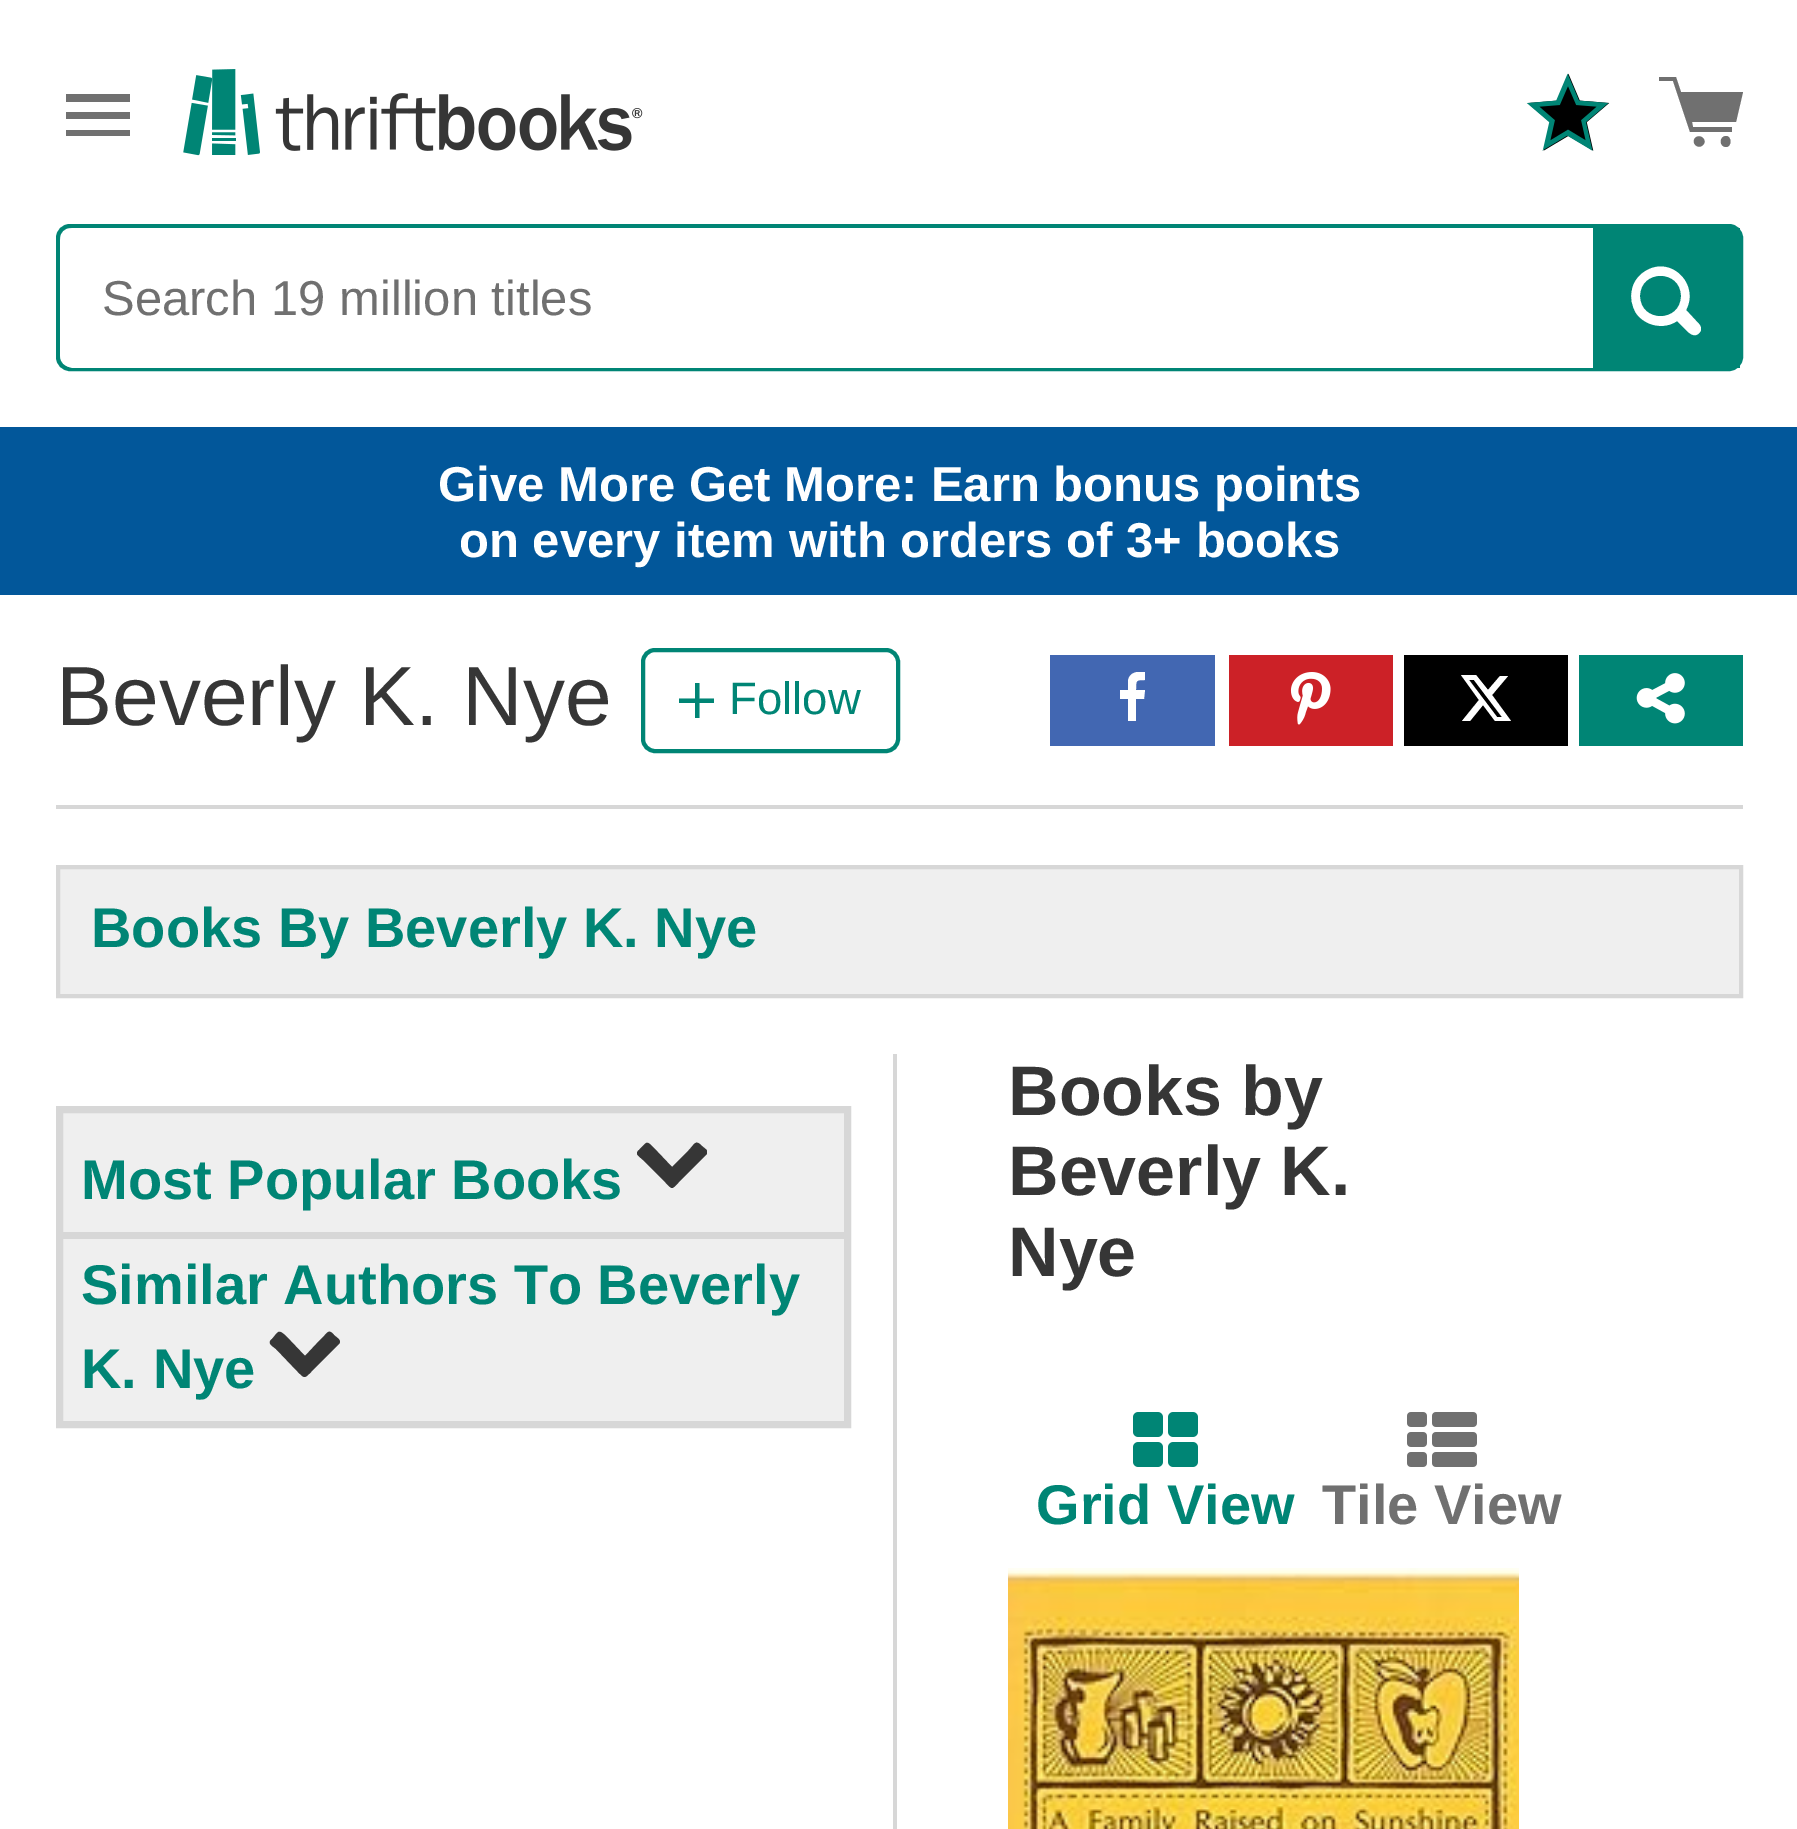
%!PS
<< /PageSize [1797 1829] >> setpagedevice
/roundrect { 5 dict begin { /r /h /w /y /x } { exch def } forall
  x r add y moveto x w add y 2 copy h add r arct x w add y h add x 1 index r arct
  x y h add x y r arct x y 2 copy exch w add exch r arct closepath end } def
/picture { 5 dict begin { /h /w /y /x /name } { exch def } forall
  gsave x y translate w h scale
  w h 8 [w 0 0 h 0 0] name (r) file false 3 colorimage grestore end } def
0 1829 translate 1 -1 scale
4 setmiterlimit
1 setgray
0 0 1797 1829 rectfill
0.439 setgray
newpath 66 136 moveto 130 136 lineto 130 130 lineto 66 130 lineto closepath 66 119 moveto 130 119 lineto 130 112 lineto 66 112 lineto closepath 66 94 moveto 66 102 lineto 130 102 lineto 130 94 lineto closepath fill
(img1.rgb) 183 69 460 87 picture
(img2.rgb) 1526 73 84 78 picture
newpath 1743 92 moveto 1681 92 lineto 1676 77 lineto 1659 77 lineto 1659 81 lineto 1673 81 lineto 1690 132 lineto 1732 132 lineto 1732 127 lineto 1693 127 lineto 1692 122 lineto 1736 122 lineto closepath 1703 145 moveto 1708 140 1700 133 1695 138 curveto 1691 143 1698 150 1703 145 curveto closepath 1726 147 moveto 1732 147 1732 136 1726 136 curveto 1719 136 1719 147 1726 147 curveto closepath fill
0 0.522 0.459 setrgbcolor
4 setlinewidth
58 226 1683 143 12 roundrect stroke
1 setgray
newpath 74 228 moveto 1593 228 lineto 1593 368 lineto 74 368 lineto 66.5 368 60 361.5 60 354 curveto 60 242 lineto 60 234.5 66.5 228 74 228 curveto closepath fill
/LiberationSans-Regular [49 0 0 -49 0 0] selectfont
0.439 setgray
102 315 moveto (Search 19 million titles) show
0 0.522 0.459 setrgbcolor
1593 228 147 140 rectfill
1 setgray
newpath 1699 324 moveto 1686 310 lineto 1700 284 1670 254 1644 272 curveto 1638 276 1633 283 1632 290 curveto 1630 298 1632 306 1636 313 curveto 1645 326 1664 330 1677 321 curveto 1685 329 lineto 1689 333 1695 339 1700 332 curveto 1702 330 1701 326 1699 324 curveto closepath 1640 296 moveto 1640 269 1681 269 1681 296 curveto 1681 323 1640 323 1640 296 curveto closepath fill
0.008 0.341 0.604 setrgbcolor
0 427 1797 168 rectfill
/LiberationSans-Bold [49 0 0 -49 0 0] selectfont
1 setgray
438 501 moveto (Give More Get More: Earn bonus points) show
459 557 moveto (on every item with orders of 3+ books) show
0.843 setgray
56 805 1687 4 rectfill
/LiberationSans-Regular [84 0 0 -84 0 0] selectfont
0.212 setgray
56 725 moveto (Beverly K. Nye) show
0 0.522 0.459 setrgbcolor
643 650 255 101 12 roundrect stroke
gsave
679 683 35 35 rectclip
newpath 716 698.5 moveto 716 703 lineto 699.5 703 lineto 699.5 719 lineto 701 719 lineto 695 719 lineto 695 703 lineto 679 703 lineto 679 698.5 lineto 695 698.5 lineto 695 682.5 lineto 699.5 682.5 lineto 699.5 698.5 lineto closepath fill
grestore
/LiberationSans-Regular [45.5 0 0 -45.5 0 0] selectfont
729 714 moveto (Follow) show
0.259 0.404 0.698 setrgbcolor
1050 655 165 91 rectfill
gsave
1106 672 53 53 rectclip
1 setgray
newpath 1145 672 moveto 1145 680 lineto 1136 680 1136 680 1136 690 curveto 1145 690 lineto 1144 699 lineto 1136 699 lineto 1136 721 lineto 1128 721 lineto 1128 699 lineto 1120 699 lineto 1120 690 lineto 1128 690 lineto 1128 681 lineto 1129 672 1138 671 1145 672 curveto closepath fill
grestore
0.8 0.129 0.153 setrgbcolor
1229 655 164 91 rectfill
(img3.rgb) 1290 672 41 53 picture
0 setgray
1404 655 164 91 rectfill
1 setgray
newpath 1476 675 moveto 1461 675 lineto 1479 700 lineto 1462 721 lineto 1470 721 lineto 1483 705 lineto 1495 721 lineto 1511 721 lineto 1492 695 lineto 1508 676 lineto 1500 676 lineto 1488 690 lineto closepath 1469 680 moveto 1474 680 lineto 1502 717 lineto 1497 717 lineto closepath eofill
0 0.522 0.459 setrgbcolor
1579 655 164 91 rectfill
(img4.rgb) 1636 673 49 51 picture
0.937 setgray
newpath 58 867 moveto 1741 867 lineto 1741 996 lineto 58 996 lineto closepath gsave fill grestore
0.843 setgray
stroke
/LiberationSans-Bold [56 0 0 -56 0 0] selectfont
0 0.522 0.459 setrgbcolor
91 947 moveto (Books By Beverly K. Nye) show
0.843 setgray
893 1054 4 775 rectfill
0.937 setgray
newpath 59.5 1109.5 moveto 847.5 1109.5 lineto 847.5 1424.5 lineto 59.5 1424.5 lineto closepath gsave fill grestore
0.843 setgray
7 setlinewidth
stroke
63 1232 781 7 rectfill
0 0.522 0.459 setrgbcolor
81 1199 moveto (Most Popular Books) show
gsave
637 1131 70 70 rectclip
0.212 setgray
newpath 706 1155 moveto 679 1182 lineto 671 1190 673 1190 665 1182 curveto 643 1160 lineto 639 1156 634 1154 639 1150 curveto 647 1142 646 1140 653 1147 curveto 672 1167 lineto 688 1151 lineto 695 1144 695 1139 702 1146 curveto 705 1149 710 1151 706 1155 curveto closepath fill
grestore
81 1304 moveto (Similar Authors To Beverly) show
81 1388 moveto (K. Nye) show
0.212 setgray
newpath 339 1344 moveto 312 1371 lineto 304 1379 305 1379 297 1371 curveto 276 1349 lineto 271 1345 267 1343 272 1339 curveto 279 1331 278 1329 286 1336 curveto 305 1356 lineto 320 1340 lineto 328 1333 328 1328 334 1335 curveto 337 1338 342 1340 339 1344 curveto closepath fill
/LiberationSans-Bold [70 0 0 -70 0 0] selectfont
1008 1115 moveto (Books by) show
1008 1195 moveto (Beverly K.) show
1008 1276 moveto (Nye) show
(img5.rgb) 1133 1412 65 55 picture
/LiberationSans-Bold [56 0 0 -56 0 0] selectfont
0 0.522 0.459 setrgbcolor
1036 1524 moveto (Grid View) show
(img6.rgb) 1407 1412 70 55 picture
0.439 setgray
1322 1524 moveto (Tile View) show
(img7.rgb) 1008 1568 511 261 picture
showpage
